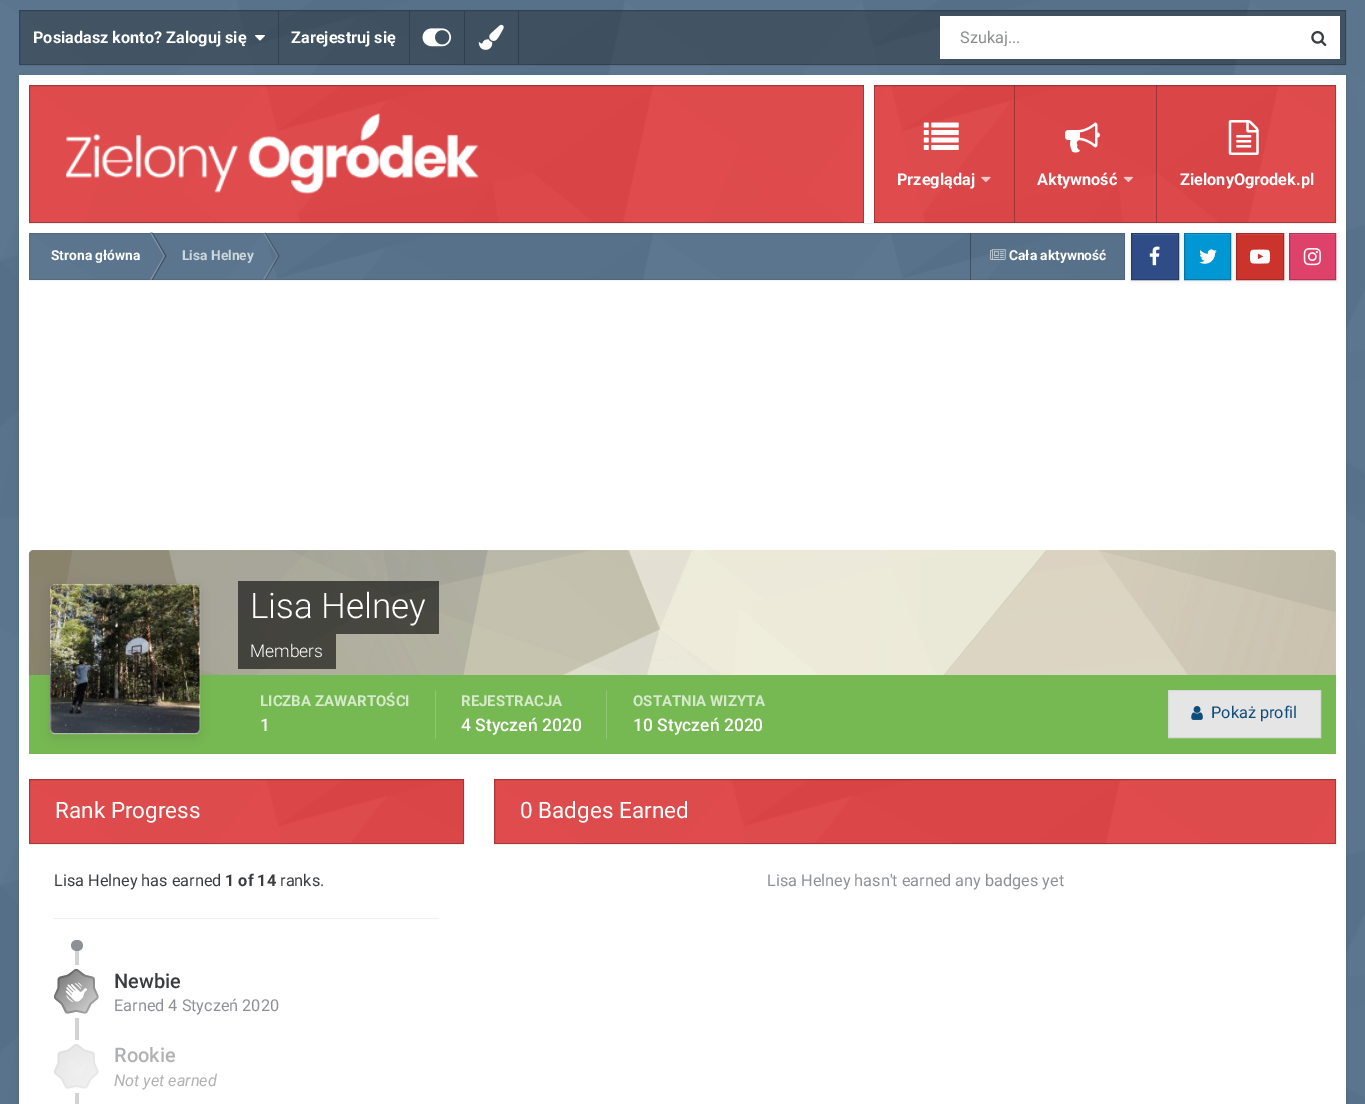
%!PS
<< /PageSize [1365 1104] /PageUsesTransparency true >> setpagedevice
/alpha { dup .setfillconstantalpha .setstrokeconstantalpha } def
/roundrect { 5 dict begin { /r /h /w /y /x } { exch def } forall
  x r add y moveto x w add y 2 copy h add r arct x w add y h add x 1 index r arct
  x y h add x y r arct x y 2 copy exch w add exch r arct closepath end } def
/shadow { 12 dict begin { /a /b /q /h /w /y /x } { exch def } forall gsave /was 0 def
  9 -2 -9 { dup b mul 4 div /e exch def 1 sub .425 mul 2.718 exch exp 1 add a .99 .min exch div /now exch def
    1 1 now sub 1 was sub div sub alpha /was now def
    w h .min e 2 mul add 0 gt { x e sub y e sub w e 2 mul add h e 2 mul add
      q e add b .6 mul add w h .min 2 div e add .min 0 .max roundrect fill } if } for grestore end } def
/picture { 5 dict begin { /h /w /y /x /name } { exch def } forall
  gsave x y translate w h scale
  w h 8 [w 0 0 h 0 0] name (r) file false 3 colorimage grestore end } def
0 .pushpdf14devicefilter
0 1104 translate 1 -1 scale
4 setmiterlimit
0.333 0.447 0.545 setrgbcolor
0 0 1365 1104 rectfill
(img1.rgb) 0 0 1365 1104 picture
0.35 alpha
0.078 setgray
19 10 1327 55 rectfill
0.2 alpha
0 setgray
19.5 10.5 1326 54 rectstroke
278 11 1 53 rectfill
/Roboto-Bold [16.25 0 0 -16.25 0 0] selectfont
1 alpha
1 setgray
33 43 moveto (Posiadasz konto? Zaloguj się) show
(img2.rgb) 255 35 10 6 picture
0.196 0.255 0.302 setrgbcolor
409 11 1 53 rectfill
1 setgray
291 43 moveto (Zarejestruj się) show
0.196 0.251 0.302 setrgbcolor
464 11 1 53 rectfill
(img3.rgb) 422 28 30 19 picture
518 11 1 53 rectfill
(img4.rgb) 478 24 26 26 picture
1 setgray
940 16 400 43 rectfill
gsave
960 28 129 18 rectclip
/Roboto-Regular [16.25 0 0 -16.25 0 0] selectfont
0.537 0.545 0.549 setrgbcolor
960 43 moveto (Szukaj...) show
grestore
(img5.rgb) 1311 31 16 16 picture
0 setgray
19 76 1327 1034 0 2 0.08 shadow
1 setgray
19 75 1327 1029 rectfill
0.878 0.271 0.278 setrgbcolor
29 85 1307 138 rectfill
(img6.rgb) 29 85 1307 138 picture
0.25 alpha
0 setgray
29.5 85.5 1306 137 rectstroke
1 alpha
(img7.rgb) 66 113 413 81 picture
0.25 alpha
newpath 863 85 moveto 863 223 lineto 873 223 lineto 873 222 lineto 864 222 lineto 864 85 lineto closepath fill
1 alpha
1 setgray
864 85 10 138 rectfill
0.25 alpha
0 setgray
874 85 1 138 rectfill
1 alpha
(img8.rgb) 923 122 36 28 picture
1 setgray
897 185 moveto (Przeglądaj) show
(img9.rgb) 981 176 10 6 picture
0.25 alpha
0 setgray
1014 85 1 138 rectfill
1 alpha
(img10.rgb) 1065 122 35 31 picture
1 setgray
1037 185 moveto (Aktywność) show
(img11.rgb) 1123 176 10 6 picture
0.25 alpha
0 setgray
1156 85 1 138 rectfill
1 alpha
(img12.rgb) 1228 120 31 35 picture
1 setgray
1180 185 moveto (ZielonyOgrodek.pl) show
0.333 0.447 0.545 setrgbcolor
29 233 1096 47 rectfill
(img13.rgb) 29 232 1096 48 picture
0.514 0.596 0.663 setrgbcolor
newpath 150 232.5 moveto 151.5 232.5 lineto 165 256 lineto 164 256 lineto closepath fill
0.3 alpha
0 setgray
newpath 151.5 232.5 moveto 152.5 232.5 lineto 166.5 256 lineto 165 256 lineto closepath fill
1 alpha
0.514 0.596 0.663 setrgbcolor
newpath 150 280 moveto 151.5 280 lineto 165 256 lineto 164 256 lineto closepath fill
0.3 alpha
0 setgray
newpath 151.5 280 moveto 152.5 280 lineto 166.5 256 lineto 165 256 lineto closepath fill
0.17 alpha
1 setgray
newpath 263 232.5 moveto 264.5 232.5 lineto 278 256 lineto 277 256 lineto closepath fill
0.21 alpha
0 setgray
newpath 264.5 232.5 moveto 265.5 232.5 lineto 279.5 256 lineto 278 256 lineto closepath fill
0.17 alpha
1 setgray
newpath 263 280 moveto 264.5 280 lineto 278 256 lineto 277 256 lineto closepath fill
0.21 alpha
0 setgray
newpath 264.5 280 moveto 265.5 280 lineto 279.5 256 lineto 278 256 lineto closepath fill
0.3 alpha
970 233 1 47 rectfill
1 alpha
(img14.rgb) 990 249 16 11 picture
0.2 alpha
0.227 0.239 0.251 setrgbcolor
29.5 233.5 1095 46 rectstroke
/Roboto-Bold [13.75 0 0 -13.75 0 0] selectfont
1 alpha
1 setgray
51 260 moveto (Strona główna) show
0.804 0.839 0.867 setrgbcolor
182 260 moveto (Lisa Helney) show
1 setgray
1009 260 moveto (Cała aktywność) show
0 setgray
1131 234 48 47 0 2 0.1 shadow
0.188 0.298 0.529 setrgbcolor
1132 234 46 45 rectfill
0.31 0.404 0.6 setrgbcolor
1133 234 45 1 rectfill
(img15.rgb) 1149 246 11 20 picture
0.149 0.239 0.424 setrgbcolor
1131.5 233.5 47 46 rectstroke
0 setgray
1184 234 47 47 0 2 0.1 shadow
0 0.592 0.827 setrgbcolor
1185 235 45 44 rectfill
0.149 0.655 0.855 setrgbcolor
1185 234 45 1 rectfill
(img16.rgb) 1199 249 18 15 picture
0 0.475 0.663 setrgbcolor
1184.5 233.5 46 46 rectstroke
0 setgray
1236 234 48 47 0 2 0.1 shadow
0.8 0.2 0.176 setrgbcolor
1237 234 46 45 rectfill
0.831 0.322 0.302 setrgbcolor
1238 234 45 1 rectfill
(img17.rgb) 1250 249 20 15 picture
0.639 0.161 0.141 setrgbcolor
1236.5 233.5 47 46 rectstroke
0 setgray
1289 234 47 47 0 2 0.1 shadow
0.871 0.255 0.416 setrgbcolor
1290 235 45 44 rectfill
0.89 0.369 0.502 setrgbcolor
1290 234 45 1 rectfill
(img18.rgb) 1303 248 18 18 picture
0.698 0.204 0.333 setrgbcolor
1289.5 233.5 46 46 rectstroke
1 0.922 0.6 setrgbcolor
newpath 34 550 moveto 1331 550 lineto 1334 550 1336 552 1336 555 curveto 1336 675 lineto 29 675 lineto 29 555 lineto 29 552 31 550 34 550 curveto closepath fill
(img19.rgb) 28 550 1308 125 picture
0.463 0.722 0.322 setrgbcolor
29 675 1307 79 rectfill
1 setgray
50 584 150 150 5 roundrect fill
(img20.rgb) 50 583 150 151 picture
gsave
newpath 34 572 moveto 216 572 lineto 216 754 lineto 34 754 lineto closepath 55 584 moveto 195 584 lineto 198 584 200 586 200 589 curveto 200 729 lineto 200 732 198 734 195 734 curveto 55 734 lineto 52 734 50 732 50 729 curveto 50 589 lineto 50 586 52 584 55 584 curveto closepath eoclip newpath
0 setgray
50 588 150 150 5 5 0.1 shadow
grestore
0.3 alpha
50.5 584.5 149 149 4.5 roundrect stroke
0.6 alpha
0 setgray
238 581 201 53 rectfill
/Roboto-Light [35 0 0 -35 0 0] selectfont
1 alpha
1 setgray
250 618 moveto (Lisa Helney) show
0.6 alpha
0 setgray
238 634 98 35 rectfill
/Roboto-Light [17.5 0 0 -17.5 0 0] selectfont
1 alpha
1 setgray
250 657 moveto (Members) show
0.569 0.776 0.459 setrgbcolor
435 690 1 49 rectfill
/Roboto-Bold [15 0 0 -15 0 0] selectfont
0.839 0.918 0.796 setrgbcolor
260 706 moveto (LICZBA ZAWARTOŚCI) show
/Roboto-Medium [17.5 0 0 -17.5 0 0] selectfont
1 setgray
260 731 moveto (1) show
0.569 0.776 0.459 setrgbcolor
606 690 1 49 rectfill
/Roboto-Bold [15 0 0 -15 0 0] selectfont
0.839 0.918 0.796 setrgbcolor
461 706 moveto (REJESTRACJA) show
/Roboto-Medium [17.5 0 0 -17.5 0 0] selectfont
1 setgray
461 731 moveto (4 Styczeń 2020) show
/Roboto-Bold [15 0 0 -15 0 0] selectfont
0.839 0.918 0.796 setrgbcolor
633 706 moveto (OSTATNIA WIZYTA) show
/Roboto-Medium [17.5 0 0 -17.5 0 0] selectfont
1 setgray
633 731 moveto (10 Styczeń 2020) show
0.898 setgray
newpath 1168.5 690.5 moveto 1320.5 690.5 lineto 1320.5 737.5 lineto 1168.5 737.5 lineto closepath gsave fill grestore
0.835 0.855 0.867 setrgbcolor
stroke
(img21.rgb) 1191 706 12 14 picture
/Roboto-Regular [16.25 0 0 -16.25 0 0] selectfont
0.055 0.298 0.475 setrgbcolor
1211 718 moveto (Pokaż profil) show
0.878 0.271 0.278 setrgbcolor
29 779 435 65 rectfill
(img22.rgb) 29 779 435 65 picture
0.25 alpha
0 setgray
29.5 779.5 434 64 rectstroke
/Roboto-Regular [22.5 0 0 -22.5 0 0] selectfont
1 alpha
1 setgray
55 818 moveto (Rank Progress) show
/Roboto-Regular [16.25 0 0 -16.25 0 0] selectfont
0.227 0.239 0.251 setrgbcolor
54 886 moveto (Lisa Helney has earned) show
/Roboto-Bold [16.25 0 0 -16.25 0 0] selectfont
225 886 moveto (1 of 14) show
/Roboto-Regular [16.25 0 0 -16.25 0 0] selectfont
280 886 moveto (ranks.) show
0.937 0.937 0.941 setrgbcolor
54 918 385 1 rectfill
0.82 0.827 0.831 setrgbcolor
75 944 4 160 rectfill
0.553 0.565 0.58 setrgbcolor
71 940 12 11 5.5 roundrect fill
1 setgray
75 965 4 53 rectfill
(img23.rgb) 54 969 45 45 picture
/Roboto-Medium [20 0 0 -20 0 0] selectfont
0.227 0.239 0.251 setrgbcolor
114 988 moveto (Newbie) show
/Roboto-Regular [16.25 0 0 -16.25 0 0] selectfont
0.553 0.565 0.58 setrgbcolor
114 1011 moveto (Earned 4 Styczeń 2020) show
1 setgray
75 1040 4 53 rectfill
(img24.rgb) 54 1044 45 45 picture
/Roboto-Medium [20 0 0 -20 0 0] selectfont
0.69 0.694 0.702 setrgbcolor
114 1062 moveto (Rookie) show
/Roboto-Italic [16.25 0 0 -16.25 0 0] selectfont
114 1086 moveto (Not yet earned) show
0.878 0.271 0.278 setrgbcolor
494 779 842 65 rectfill
(img25.rgb) 494 779 842 65 picture
0.25 alpha
0 setgray
494.5 779.5 841 64 rectstroke
/Roboto-Regular [22.5 0 0 -22.5 0 0] selectfont
1 alpha
1 setgray
520 818 moveto (0 Badges Earned) show
/Roboto-Regular [16.25 0 0 -16.25 0 0] selectfont
0.553 0.565 0.58 setrgbcolor
767 886 moveto (Lisa Helney hasn't earned any badges yet) show
.poppdf14devicefilter showpage
